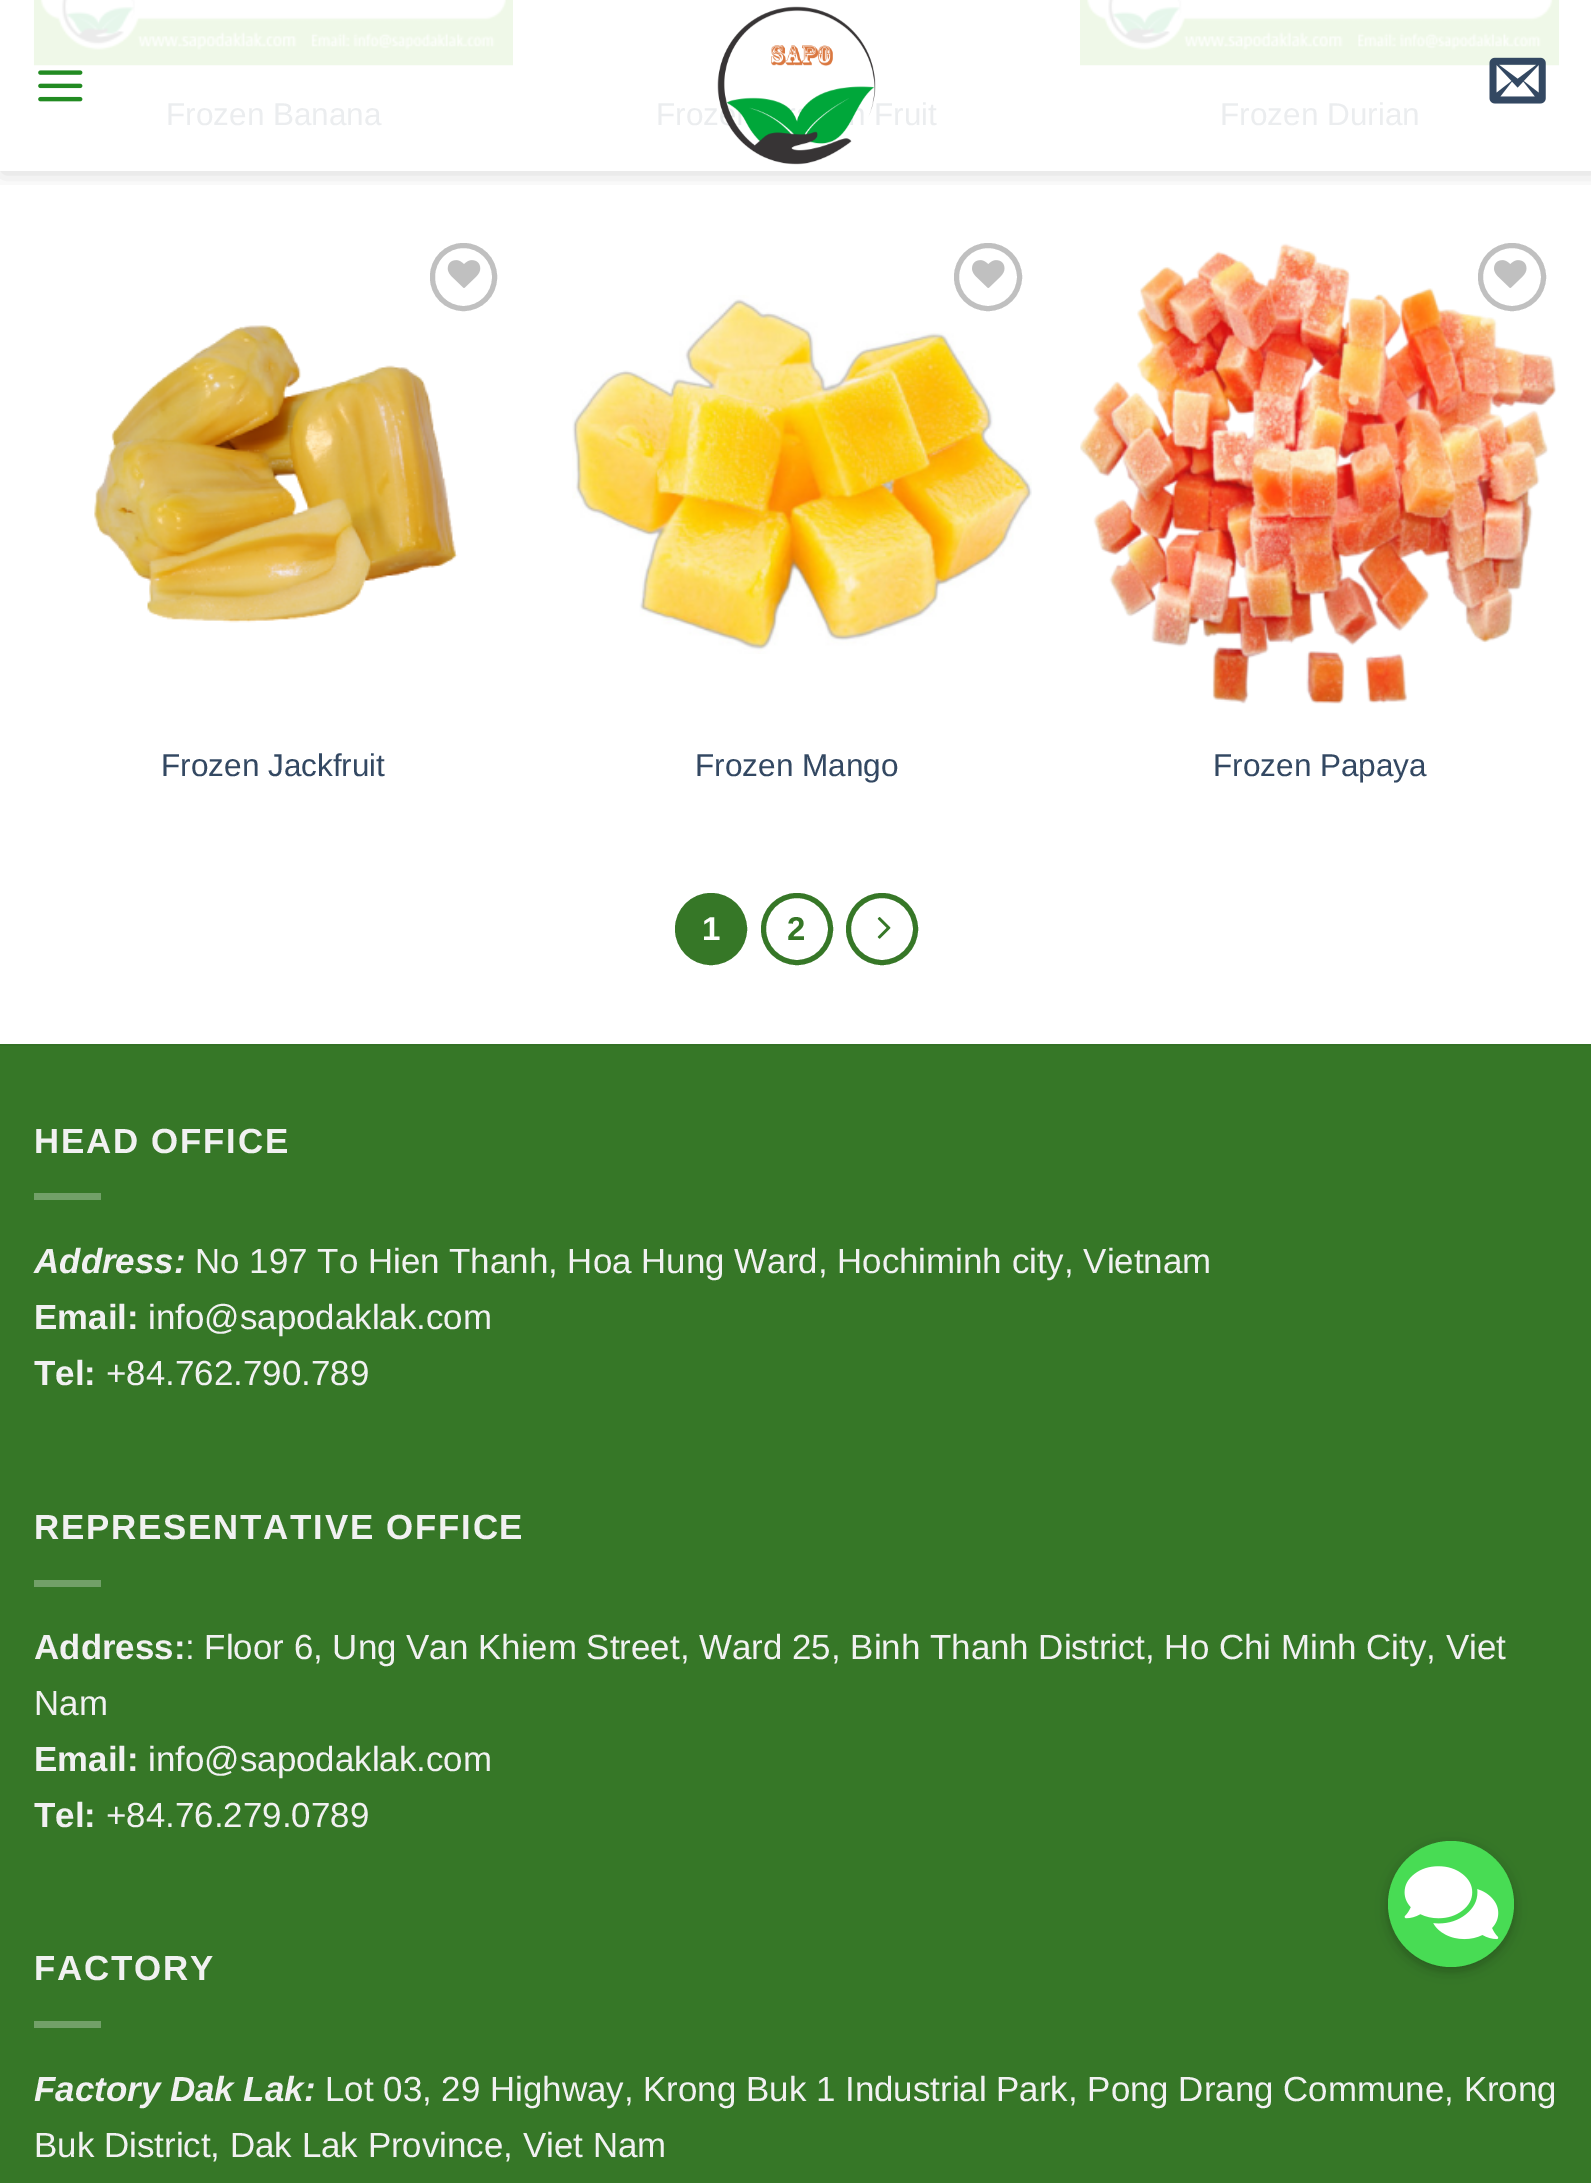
%!PS
<< /PageSize [1591 2183] /PageUsesTransparency true >> setpagedevice
/alpha { dup .setfillconstantalpha .setstrokeconstantalpha } def
/roundrect { 5 dict begin { /r /h /w /y /x } { exch def } forall
  x r add y moveto x w add y 2 copy h add r arct x w add y h add x 1 index r arct
  x y h add x y r arct x y 2 copy exch w add exch r arct closepath end } def
/shadow { 12 dict begin { /a /b /q /h /w /y /x } { exch def } forall gsave /was 0 def
  9 -2 -9 { dup b mul 4 div /e exch def 1 sub .425 mul 2.718 exch exp 1 add a .99 .min exch div /now exch def
    1 1 now sub 1 was sub div sub alpha /was now def
    w h .min e 2 mul add 0 gt { x e sub y e sub w e 2 mul add h e 2 mul add
      q e add b .6 mul add w h .min 2 div e add .min 0 .max roundrect fill } if } for grestore end } def
/picture { 5 dict begin { /h /w /y /x /name } { exch def } forall
  gsave x y translate w h scale
  w h 8 [w 0 0 h 0 0] name (r) file false 3 colorimage grestore end } def
0 .pushpdf14devicefilter
0 2183 translate 1 -1 scale
4 setmiterlimit
1 setgray
0 0 1591 2183 rectfill
(img4.rgb) 33 0 480 66 picture
(img5.rgb) 1080 0 480 66 picture
gsave
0 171 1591 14 rectclip
0 setgray
2 2 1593 171 0 11 0.15 shadow
grestore
(img1.rgb) 38 70 45 32 picture
/LiberationSans-Regular [31.5 0 0 -31.5 0 0] selectfont
0.922 0.929 0.937 setrgbcolor
656 125 moveto (Froz) show
(img2.rgb) 717 6 159 159 picture
(img3.rgb) 1489 57 57 47 picture
166 125 moveto (Frozen Banana) show
874 125 moveto (Fruit) show
1220 125 moveto (Frozen Durian) show
0.753 setgray
5 setlinewidth
432.5 245.5 62 63 31 roundrect stroke
(img6.rgb) 447 260 34 28 picture
(img7.rgb) 94 325 364 298 picture
0.2 0.282 0.384 setrgbcolor
161 776 moveto (Frozen Jackfruit) show
(img9.rgb) 572 295 460 359 picture
0.753 setgray
newpath 988 277 31.5 0 360 arc closepath stroke
(img8.rgb) 972 260 33 28 picture
0.2 0.282 0.384 setrgbcolor
695 776 moveto (Frozen Mango) show
(img10.rgb) 1080 243 477 461 picture
0.753 setgray
newpath 1512 277 31.5 0 360 arc closepath stroke
(img8.rgb) 1494 260 33 28 picture
0.2 0.282 0.384 setrgbcolor
1213 776 moveto (Frozen Papaya) show
0.212 0.467 0.153 setrgbcolor
newpath 711 929 33.5 0 360 arc closepath gsave fill grestore
stroke
/LiberationSans-Bold [33 0 0 -33 0 0] selectfont
1 setgray
702 940 moveto (1) show
0.212 0.467 0.153 setrgbcolor
newpath 797 929 33.5 0 360 arc closepath stroke
787 940 moveto (2) show
newpath 882 929 33.5 0 360 arc closepath stroke
(img11.rgb) 877 917 14 22 picture
0 1046 1591 1137 rectfill
0.2 0.443 0.145 setrgbcolor
0 1044 1591 2 rectfill
/LiberationSans-Bold [34.9 0 0 -34.9 0 0] selectfont
0.945 setgray
34 1153 moveto 1.75 0 (HEAD OFFICE) ashow
0.447 0.627 0.408 setrgbcolor
34 1193 67 7 rectfill
/LiberationSans-BoldItalic [34.9 0 0 -34.9 0 0] selectfont
0.945 setgray
34 1273 moveto (Address:) show
/LiberationSans-Regular [34.9 0 0 -34.9 0 0] selectfont
195 1273 moveto (No 197 To Hien Thanh, Hoa Hung Ward, Hochiminh city, Vietnam) show
/LiberationSans-Bold [34.9 0 0 -34.9 0 0] selectfont
34 1329 moveto (Email:) show
/LiberationSans-Regular [34.9 0 0 -34.9 0 0] selectfont
148 1329 moveto (info@sapodaklak.com) show
/LiberationSans-Bold [34.9 0 0 -34.9 0 0] selectfont
34 1385 moveto (Tel:) show
/LiberationSans-Regular [34.9 0 0 -34.9 0 0] selectfont
106 1385 moveto (+84.762.790.789) show
/LiberationSans-Bold [34.9 0 0 -34.9 0 0] selectfont
34 1539 moveto 1.75 0 (REPRESENTATIVE OFFICE) ashow
0.447 0.627 0.408 setrgbcolor
34 1580 67 7 rectfill
0.945 setgray
34 1659 moveto (Address:) show
/LiberationSans-Regular [34.9 0 0 -34.9 0 0] selectfont
185 1659 moveto (: Floor 6, Ung Van Khiem Street, Ward 25, Binh Thanh District, Ho Chi Minh City, Viet) show
34 1715 moveto (Nam) show
/LiberationSans-Bold [34.9 0 0 -34.9 0 0] selectfont
34 1771 moveto (Email:) show
/LiberationSans-Regular [34.9 0 0 -34.9 0 0] selectfont
148 1771 moveto (info@sapodaklak.com) show
/LiberationSans-Bold [34.9 0 0 -34.9 0 0] selectfont
34 1827 moveto (Tel:) show
/LiberationSans-Regular [34.9 0 0 -34.9 0 0] selectfont
106 1827 moveto (+84.76.279.0789) show
/LiberationSans-Bold [34.9 0 0 -34.9 0 0] selectfont
34 1980 moveto 1.75 0 (FACTORY) ashow
0.447 0.627 0.408 setrgbcolor
34 2021 67 7 rectfill
/LiberationSans-BoldItalic [34.9 0 0 -34.9 0 0] selectfont
0.945 setgray
34 2101 moveto (Factory Dak Lak:) show
/LiberationSans-Regular [34.9 0 0 -34.9 0 0] selectfont
325 2101 moveto (Lot 03, 29 Highway, Krong Buk 1 Industrial Park, Pong Drang Commune, Krong) show
34 2157 moveto (Buk District, Dak Lak Province, Viet Nam) show
0 setgray
1388 1845 126 126 63 11 0.12 shadow
1388 1845 126 126 63 5.5 0.16 shadow
0.282 0.863 0.329 setrgbcolor
newpath 1451 1904 63 0 360 arc closepath fill
(img12.rgb) 1404 1866 95 74 picture
.poppdf14devicefilter showpage
